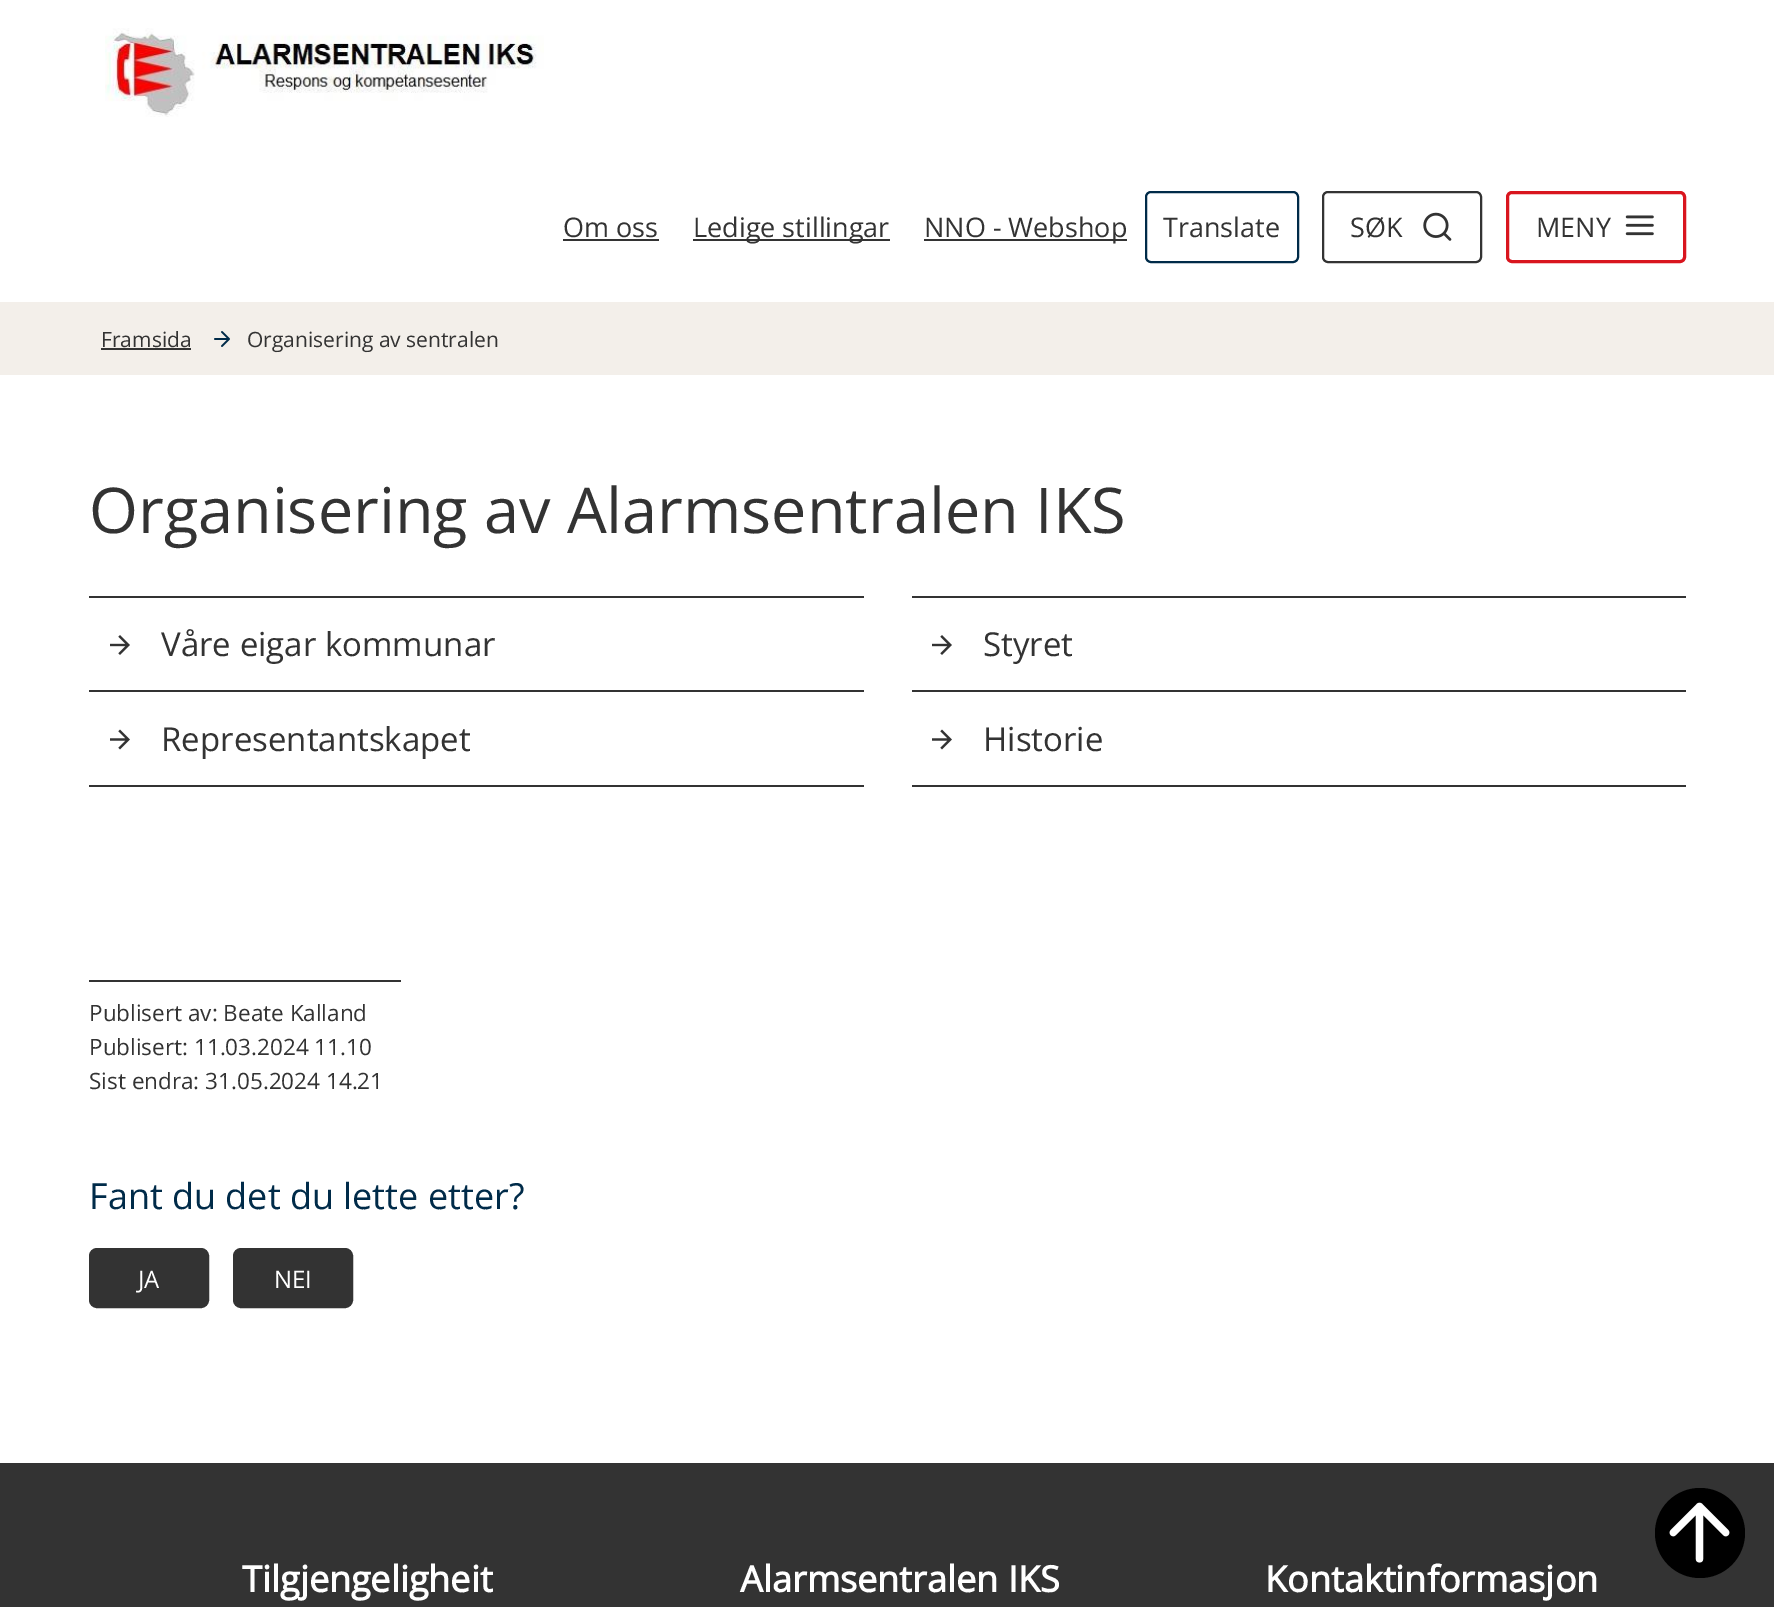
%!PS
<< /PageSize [1774 1607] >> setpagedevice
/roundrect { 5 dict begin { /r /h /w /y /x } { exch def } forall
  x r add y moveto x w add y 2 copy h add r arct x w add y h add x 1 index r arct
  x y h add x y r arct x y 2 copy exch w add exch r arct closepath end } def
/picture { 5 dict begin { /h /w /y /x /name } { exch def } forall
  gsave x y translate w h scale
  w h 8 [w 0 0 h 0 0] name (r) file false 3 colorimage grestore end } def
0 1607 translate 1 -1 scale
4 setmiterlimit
1 setgray
0 0 1774 1607 rectfill
(img1.rgb) 105 28 439 89 picture
/OpenSans-Regular [27 0 0 -27 0 0] selectfont
0.2 setgray
563 237 moveto (Om oss) show
563 239 96 2 rectfill
693 239 197 2 rectfill
693 237 moveto (Ledige stillingar) show
924 239 203 2 rectfill
924 237 moveto (NNO - Webshop) show
0 0.169 0.286 setrgbcolor
2 setlinewidth
1146 192 152 70 5 roundrect stroke
0.2 setgray
1163 237 moveto (Translate) show
1323 192 158 70 5 roundrect stroke
1350 237 moveto (SØK) show
(img2.rgb) 1423 212 29 29 picture
0.851 0.082 0.118 setrgbcolor
3 setlinewidth
1507.5 192.5 177 69 4.5 roundrect stroke
0.2 setgray
1536 237 moveto (MENY) show
(img3.rgb) 1625 215 29 21 picture
0.953 0.937 0.918 setrgbcolor
0 302 1774 73 rectfill
/OpenSans-Regular [21 0 0 -21 0 0] selectfont
0.2 setgray
101 347 moveto (Framsida) show
101 348 90 2 rectfill
(img4.rgb) 214 331 16 16 picture
247 347 moveto (Organisering av sentralen) show
/OpenSans-Regular [63 0 0 -63 0 0] selectfont
89 533 moveto (Organisering av Alarmsentralen IKS) show
89 596 775 2 rectfill
89 690 775 2 rectfill
(img5.rgb) 110 635 20 20 picture
/OpenSans-Regular [33 0 0 -33 0 0] selectfont
161 656 moveto (Våre eigar kommunar) show
912 596 774 2 rectfill
912 690 774 2 rectfill
(img5.rgb) 932 635 20 20 picture
983 656 moveto (Styret) show
89 785 775 2 rectfill
(img6.rgb) 110 729 20 21 picture
161 751 moveto (Representantskapet) show
912 785 774 2 rectfill
(img6.rgb) 932 729 20 21 picture
983 751 moveto (Historie) show
89 980 312 2 rectfill
/OpenSans-Regular [22.5 0 0 -22.5 0 0] selectfont
89 1021 moveto (Publisert av: Beate Kalland) show
89 1055 moveto (Publisert: 11.03.2024 11.10) show
89 1089 moveto (Sist endra: 31.05.2024 14.21) show
/OpenSans-Regular [36 0 0 -36 0 0] selectfont
0 0.169 0.286 setrgbcolor
89 1209 moveto (Fant du det du lette etter?) show
0.2 setgray
90 1249 118 58 7 roundrect gsave fill grestore
2 setlinewidth
stroke
/OpenSans-Regular [24 0 0 -24 0 0] selectfont
1 setgray
138 1288 moveto (JA) show
0.2 setgray
234 1249 118 58 7 roundrect gsave fill grestore
stroke
1 setgray
274 1288 moveto (NEI) show
0.2 setgray
0 1463 1774 144 rectfill
0 setgray
newpath 1700 1533 45 0 360 arc closepath fill
(img7.rgb) 1669 1502 61 61 picture
/OpenSans-Bold [36 0 0 -36 0 0] selectfont
1 setgray
242 1592 moveto (Tilgjengeligheit) show
740 1592 moveto (Alarmsentralen IKS) show
1265 1592 moveto (Kontaktinformasjon) show
showpage
